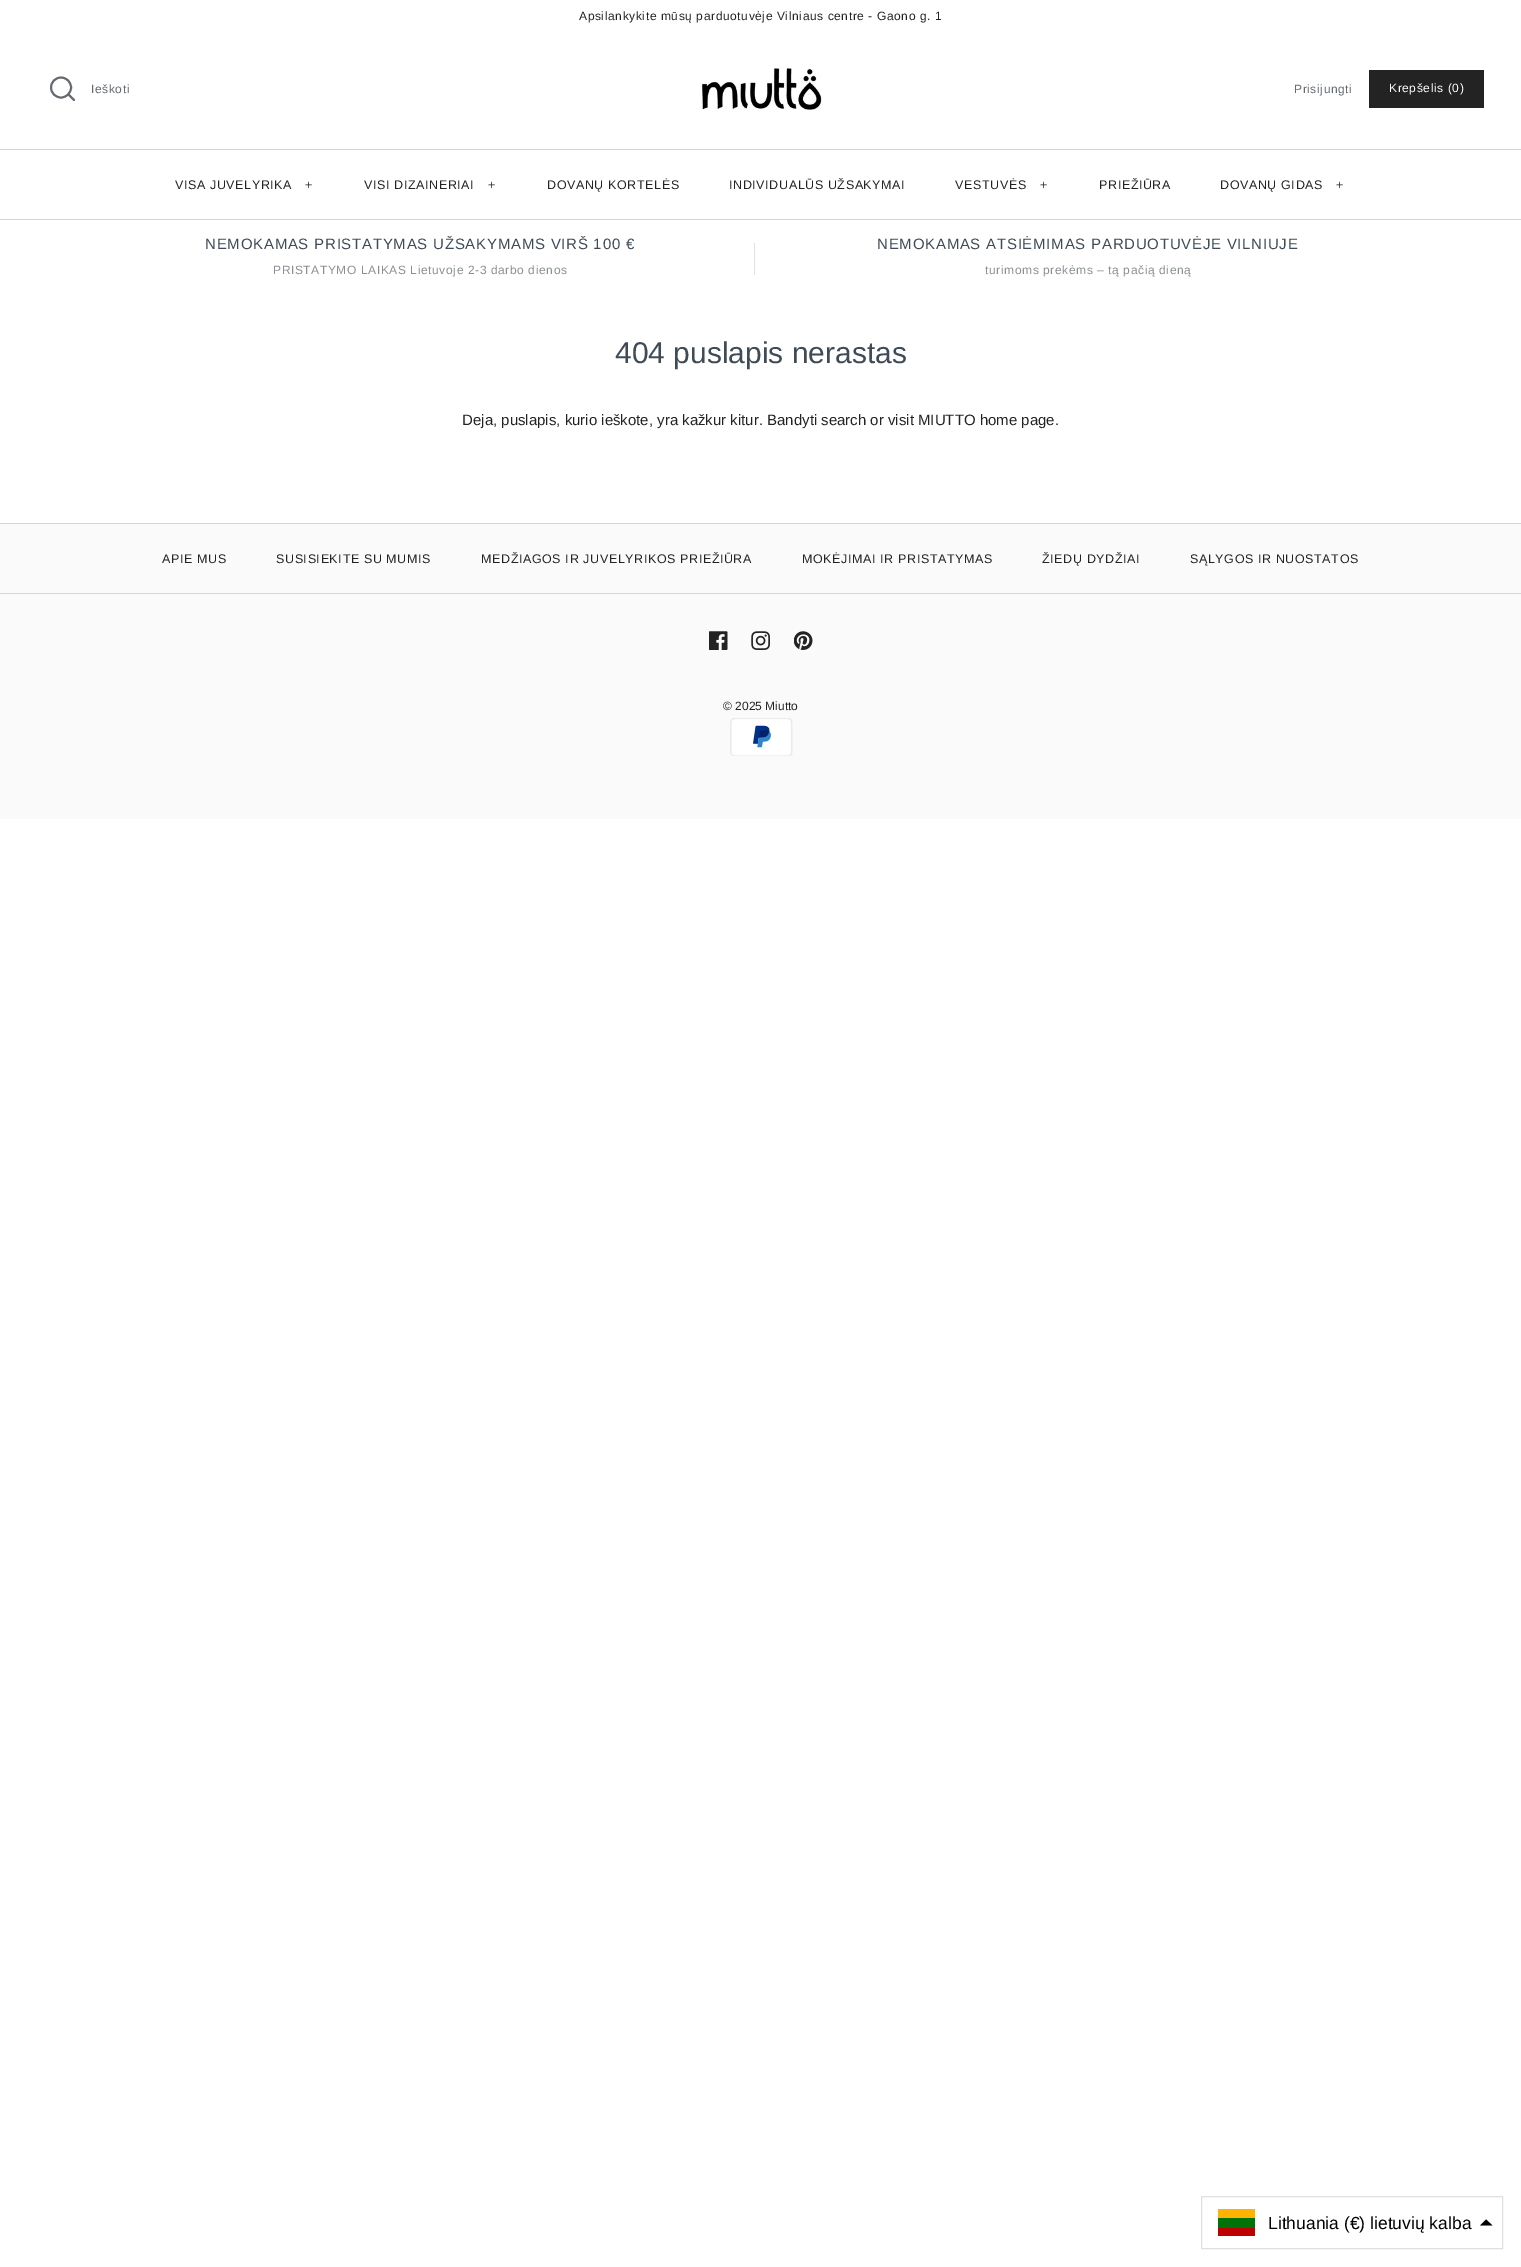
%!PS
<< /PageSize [1521 2267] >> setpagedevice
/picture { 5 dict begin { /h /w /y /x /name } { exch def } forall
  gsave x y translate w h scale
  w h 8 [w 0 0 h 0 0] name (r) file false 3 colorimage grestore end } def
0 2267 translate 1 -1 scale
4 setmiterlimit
1 setgray
0 0 1521 2267 rectfill
/Arimo-Regular [12 0 0 -12 0 0] selectfont
0.137 setgray
579 20 moveto 0.6 0 (Apsilankykite mūsų parduotuvėje Vilniaus centre - Gaono g. 1) ashow
(img1.rgb) 701 68 121 42 picture
0.392 0.416 0.443 setrgbcolor
1.9 setlinewidth
newpath 61 87.5 10 0 360 arc closepath stroke
1 setlinecap
1 setlinejoin
newpath 74 100 moveto 68.5 94.5 lineto stroke
91 93 moveto 0.6 0 (Ieškoti) ashow
1294 93 moveto 0.6 0 (Prisijungti) ashow
0.137 setgray
1369 70 115 38 rectfill
1 setgray
1389 92 moveto 0.6 0 (Krepšelis \(0\)) ashow
0.82 0.839 0.851 setrgbcolor
0 219 1521 1 rectfill
0 149 1521 1 rectfill
/Arimo-Regular [12.5 0 0 -12.5 0 0] selectfont
0.137 setgray
175 189 moveto 0.6 0 (VISA JUVELYRIKA) ashow
305 189 moveto 0.6 0 (+) ashow
364 189 moveto 0.6 0 (VISI DIZAINERIAI) ashow
488 189 moveto 0.6 0 (+) ashow
547 189 moveto 0.6 0 (DOVANŲ KORTELĖS) ashow
729 189 moveto 0.6 0 (INDIVIDUALŪS UŽSAKYMAI) ashow
955 189 moveto 0.6 0 (VESTUVĖS) ashow
1040 189 moveto 0.6 0 (+) ashow
1099 189 moveto 0.6 0 (PRIEŽIŪRA) ashow
1220 189 moveto 0.6 0 (DOVANŲ GIDAS) ashow
1336 189 moveto 0.6 0 (+) ashow
/Arimo-Regular [15 0 0 -15 0 0] selectfont
0.247 0.294 0.341 setrgbcolor
205 249 moveto 0.75 0 (NEMOKAMAS PRISTATYMAS UŽSAKYMAMS VIRŠ 100 €) ashow
/Arimo-Regular [12 0 0 -12 0 0] selectfont
0.541 0.561 0.576 setrgbcolor
273 274 moveto 0.6 0 (PRISTATYMO LAIKAS Lietuvoje 2-3 darbo dienos) ashow
0.886 setgray
754 243 1 32 rectfill
/Arimo-Regular [15 0 0 -15 0 0] selectfont
0.247 0.294 0.341 setrgbcolor
877 249 moveto 0.75 0 (NEMOKAMAS ATSIĖMIMAS PARDUOTUVĖJE VILNIUJE) ashow
/Arimo-Regular [12 0 0 -12 0 0] selectfont
0.541 0.561 0.576 setrgbcolor
985 274 moveto 0.6 0 (turimoms prekėms – tą pačią dieną) ashow
/Arimo-Regular [30 0 0 -30 0 0] selectfont
0.247 0.294 0.341 setrgbcolor
615 363 moveto (404 puslapis nerastas) show
/Arimo-Regular [15 0 0 -15 0 0] selectfont
0.137 setgray
462 425 moveto (Deja, puslapis, kurio ieškote, yra kažkur kitur. Bandyti search or visit MIUTTO home page.) show
0.98 setgray
0 524 1521 295 rectfill
0.82 0.839 0.851 setrgbcolor
0 523 1521 1 rectfill
0 593 1521 1 rectfill
/Arimo-Regular [12.5 0 0 -12.5 0 0] selectfont
0.137 setgray
162 563 moveto 0.6 0 (APIE MUS) ashow
276 563 moveto 0.6 0 (SUSISIEKITE SU MUMIS) ashow
481 563 moveto 0.6 0 (MEDŽIAGOS IR JUVELYRIKOS PRIEŽIŪRA) ashow
802 563 moveto 0.6 0 (MOKĖJIMAI IR PRISTATYMAS) ashow
1042 563 moveto 0.6 0 (ŽIEDŲ DYDŽIAI) ashow
1190 563 moveto 0.6 0 (SĄLYGOS IR NUOSTATOS) ashow
(img2.rgb) 709 631 19 19 picture
(img3.rgb) 751 631 19 19 picture
(img4.rgb) 794 631 19 19 picture
/Arimo-Regular [12 0 0 -12 0 0] selectfont
723 710 moveto (© 2025 Miutto) show
(img5.rgb) 730 718 63 38 picture
0.878 setgray
1 setlinewidth
0 setlinecap
0 setlinejoin
1201.5 2196.5 301 52 rectstroke
0 0.451 0.031 setrgbcolor
1218 2218 37 10 rectfill
0.749 0 0 setrgbcolor
1218 2228 37 8 rectfill
1 0.702 0 setrgbcolor
1218 2209 37 9 rectfill
/Arimo-Regular [17.5 0 0 -17.5 0 0] selectfont
0 setgray
1268 2229 moveto (Lithuania \(€\) lietuvių kalba) show
newpath 1480 2225.5 moveto 1486 2219.5 lineto 1492.5 2225.5 lineto closepath eofill
showpage
